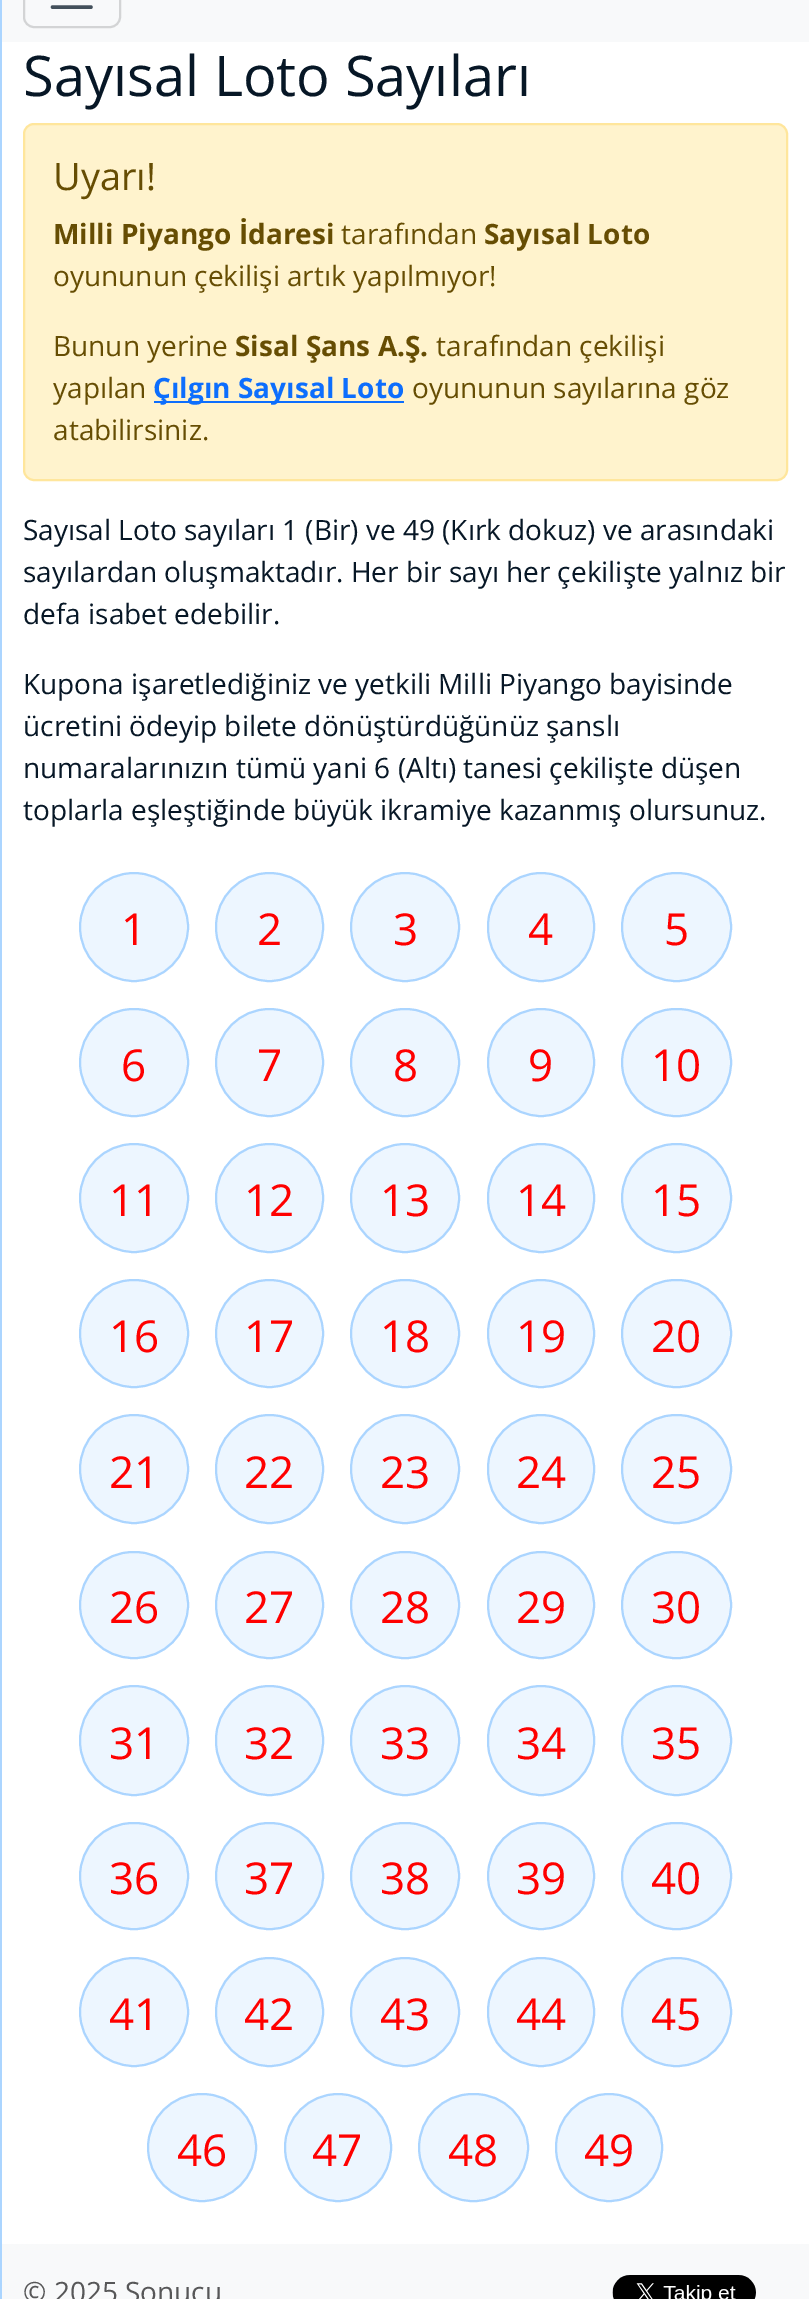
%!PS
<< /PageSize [809 2299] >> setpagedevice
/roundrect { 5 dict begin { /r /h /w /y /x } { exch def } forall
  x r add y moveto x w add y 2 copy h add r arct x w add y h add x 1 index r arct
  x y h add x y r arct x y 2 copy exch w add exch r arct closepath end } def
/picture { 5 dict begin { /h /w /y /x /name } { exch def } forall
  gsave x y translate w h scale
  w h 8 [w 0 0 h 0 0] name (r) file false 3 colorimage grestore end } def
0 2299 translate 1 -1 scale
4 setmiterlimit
1 setgray
0 0 809 2299 rectfill
0.671 0.835 1 setrgbcolor
0 0 2 2299 rectfill
0.973 0.976 0.98 setrgbcolor
2 0 807 42 rectfill
0.827 0.831 0.835 setrgbcolor
2 setlinewidth
24 -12 96 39 10 roundrect stroke
0.263 0.314 0.357 setrgbcolor
3.5 setlinewidth
1 setlinecap
newpath 52.5 -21 moveto 91 -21 lineto 52.5 -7 moveto 91 -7 lineto 52.5 7 moveto 91 7 lineto stroke
/OpenSans-Regular [56 0 0 -56 0 0] selectfont
0.027 0.09 0.149 setrgbcolor
23 96 moveto (Sayısal Loto Sayıları) show
1 0.953 0.804 setrgbcolor
24 124 763 356 10 roundrect gsave fill grestore
1 0.902 0.612 setrgbcolor
2 setlinewidth
0 setlinecap
stroke
/OpenSans-Regular [38 0 0 -38 0 0] selectfont
0.4 0.302 0.012 setrgbcolor
53 190 moveto (Uyarı!) show
/OpenSans-Bold [28 0 0 -28 0 0] selectfont
53 244 moveto (Milli Piyango İdaresi) show
/OpenSans-Regular [28 0 0 -28 0 0] selectfont
341 244 moveto (tarafından) show
/OpenSans-Bold [28 0 0 -28 0 0] selectfont
484 244 moveto (Sayısal Loto) show
/OpenSans-Regular [28 0 0 -28 0 0] selectfont
53 286 moveto (oyununun çekilişi artık yapılmıyor!) show
53 356 moveto (Bunun yerine) show
/OpenSans-Bold [28 0 0 -28 0 0] selectfont
235 356 moveto (Sisal Şans A.Ş.) show
/OpenSans-Regular [28 0 0 -28 0 0] selectfont
436 356 moveto (tarafından çekilişi) show
53 398 moveto (yapılan) show
0.051 0.431 0.992 setrgbcolor
154 401 250 2 rectfill
/OpenSans-Bold [28 0 0 -28 0 0] selectfont
153 398 moveto (Çılgın Sayısal Loto) show
/OpenSans-Regular [28 0 0 -28 0 0] selectfont
0.4 0.302 0.012 setrgbcolor
412 398 moveto (oyununun sayılarına göz) show
53 440 moveto (atabilirsiniz.) show
0.027 0.09 0.149 setrgbcolor
23 540 moveto (Sayısal Loto sayıları 1 \(Bir\) ve 49 \(Kırk dokuz\) ve arasındaki) show
23 582 moveto (sayılardan oluşmaktadır. Her bir sayı her çekilişte yalnız bir) show
23 624 moveto (defa isabet edebilir.) show
23 694 moveto (Kupona işaretlediğiniz ve yetkili Milli Piyango bayisinde) show
23 736 moveto (ücretini ödeyip bilete dönüştürdüğünüz şanslı) show
23 778 moveto (numaralarınızın tümü yani 6 \(Altı\) tanesi çekilişte düşen) show
23 820 moveto (toplarla eşleştiğinde büyük ikramiye kazanmış olursunuz.) show
0.929 0.965 1 setrgbcolor
newpath 134 927 54 0 360 arc closepath gsave fill grestore
0.671 0.835 1 setrgbcolor
stroke
/OpenSans-Regular [44 0 0 -44 0 0] selectfont
1 0 0 setrgbcolor
121 945 moveto (1) show
0.929 0.965 1 setrgbcolor
216 873 107 108 53.5 roundrect gsave fill grestore
0.671 0.835 1 setrgbcolor
stroke
1 0 0 setrgbcolor
257 945 moveto (2) show
0.929 0.965 1 setrgbcolor
newpath 405 927 54 0 360 arc closepath gsave fill grestore
0.671 0.835 1 setrgbcolor
stroke
1 0 0 setrgbcolor
393 945 moveto (3) show
0.929 0.965 1 setrgbcolor
488 873 106 108 53 roundrect gsave fill grestore
0.671 0.835 1 setrgbcolor
stroke
1 0 0 setrgbcolor
528 945 moveto (4) show
0.929 0.965 1 setrgbcolor
622 873 109 108 54 roundrect gsave fill grestore
0.671 0.835 1 setrgbcolor
stroke
1 0 0 setrgbcolor
664 945 moveto (5) show
0.929 0.965 1 setrgbcolor
80 1009 108 107 53.5 roundrect gsave fill grestore
0.671 0.835 1 setrgbcolor
stroke
1 0 0 setrgbcolor
121 1081 moveto (6) show
0.929 0.965 1 setrgbcolor
newpath 269.5 1062.5 53.5 0 360 arc closepath gsave fill grestore
0.671 0.835 1 setrgbcolor
stroke
1 0 0 setrgbcolor
257 1081 moveto (7) show
0.929 0.965 1 setrgbcolor
351 1009 108 107 53.5 roundrect gsave fill grestore
0.671 0.835 1 setrgbcolor
stroke
1 0 0 setrgbcolor
393 1081 moveto (8) show
0.929 0.965 1 setrgbcolor
488 1009 106 107 53 roundrect gsave fill grestore
0.671 0.835 1 setrgbcolor
stroke
1 0 0 setrgbcolor
528 1081 moveto (9) show
0.929 0.965 1 setrgbcolor
622 1009 109 107 53.5 roundrect gsave fill grestore
0.671 0.835 1 setrgbcolor
stroke
1 0 0 setrgbcolor
651 1081 moveto (10) show
0.929 0.965 1 setrgbcolor
newpath 134 1198 54 0 360 arc closepath gsave fill grestore
0.671 0.835 1 setrgbcolor
stroke
1 0 0 setrgbcolor
109 1216 moveto (11) show
0.929 0.965 1 setrgbcolor
216 1144 107 108 53.5 roundrect gsave fill grestore
0.671 0.835 1 setrgbcolor
stroke
1 0 0 setrgbcolor
244 1216 moveto (12) show
0.929 0.965 1 setrgbcolor
newpath 405 1198 54 0 360 arc closepath gsave fill grestore
0.671 0.835 1 setrgbcolor
stroke
1 0 0 setrgbcolor
380 1216 moveto (13) show
0.929 0.965 1 setrgbcolor
488 1144 106 108 53 roundrect gsave fill grestore
0.671 0.835 1 setrgbcolor
stroke
1 0 0 setrgbcolor
516 1216 moveto (14) show
0.929 0.965 1 setrgbcolor
622 1144 109 108 54 roundrect gsave fill grestore
0.671 0.835 1 setrgbcolor
stroke
1 0 0 setrgbcolor
651 1216 moveto (15) show
0.929 0.965 1 setrgbcolor
80 1280 108 107 53.5 roundrect gsave fill grestore
0.671 0.835 1 setrgbcolor
stroke
1 0 0 setrgbcolor
109 1352 moveto (16) show
0.929 0.965 1 setrgbcolor
newpath 269.5 1333.5 53.5 0 360 arc closepath gsave fill grestore
0.671 0.835 1 setrgbcolor
stroke
1 0 0 setrgbcolor
244 1352 moveto (17) show
0.929 0.965 1 setrgbcolor
351 1280 108 107 53.5 roundrect gsave fill grestore
0.671 0.835 1 setrgbcolor
stroke
1 0 0 setrgbcolor
380 1352 moveto (18) show
0.929 0.965 1 setrgbcolor
488 1280 106 107 53 roundrect gsave fill grestore
0.671 0.835 1 setrgbcolor
stroke
1 0 0 setrgbcolor
516 1352 moveto (19) show
0.929 0.965 1 setrgbcolor
622 1280 109 107 53.5 roundrect gsave fill grestore
0.671 0.835 1 setrgbcolor
stroke
1 0 0 setrgbcolor
651 1352 moveto (20) show
0.929 0.965 1 setrgbcolor
newpath 134 1469 54 0 360 arc closepath gsave fill grestore
0.671 0.835 1 setrgbcolor
stroke
1 0 0 setrgbcolor
109 1488 moveto (21) show
0.929 0.965 1 setrgbcolor
216 1415 107 108 53.5 roundrect gsave fill grestore
0.671 0.835 1 setrgbcolor
stroke
1 0 0 setrgbcolor
244 1488 moveto (22) show
0.929 0.965 1 setrgbcolor
newpath 405 1469 54 0 360 arc closepath gsave fill grestore
0.671 0.835 1 setrgbcolor
stroke
1 0 0 setrgbcolor
380 1488 moveto (23) show
0.929 0.965 1 setrgbcolor
488 1415 106 108 53 roundrect gsave fill grestore
0.671 0.835 1 setrgbcolor
stroke
1 0 0 setrgbcolor
516 1488 moveto (24) show
0.929 0.965 1 setrgbcolor
622 1415 109 108 54 roundrect gsave fill grestore
0.671 0.835 1 setrgbcolor
stroke
1 0 0 setrgbcolor
651 1488 moveto (25) show
0.929 0.965 1 setrgbcolor
80 1552 108 106 53 roundrect gsave fill grestore
0.671 0.835 1 setrgbcolor
stroke
1 0 0 setrgbcolor
109 1623 moveto (26) show
0.929 0.965 1 setrgbcolor
216 1552 107 106 53 roundrect gsave fill grestore
0.671 0.835 1 setrgbcolor
stroke
1 0 0 setrgbcolor
244 1623 moveto (27) show
0.929 0.965 1 setrgbcolor
351 1552 108 106 53 roundrect gsave fill grestore
0.671 0.835 1 setrgbcolor
stroke
1 0 0 setrgbcolor
380 1623 moveto (28) show
0.929 0.965 1 setrgbcolor
newpath 541 1605 53 0 360 arc closepath gsave fill grestore
0.671 0.835 1 setrgbcolor
stroke
1 0 0 setrgbcolor
516 1623 moveto (29) show
0.929 0.965 1 setrgbcolor
622 1552 109 106 53 roundrect gsave fill grestore
0.671 0.835 1 setrgbcolor
stroke
1 0 0 setrgbcolor
651 1623 moveto (30) show
0.929 0.965 1 setrgbcolor
80 1686 108 109 54 roundrect gsave fill grestore
0.671 0.835 1 setrgbcolor
stroke
1 0 0 setrgbcolor
109 1759 moveto (31) show
0.929 0.965 1 setrgbcolor
216 1686 107 109 53.5 roundrect gsave fill grestore
0.671 0.835 1 setrgbcolor
stroke
1 0 0 setrgbcolor
244 1759 moveto (32) show
0.929 0.965 1 setrgbcolor
351 1686 108 109 54 roundrect gsave fill grestore
0.671 0.835 1 setrgbcolor
stroke
1 0 0 setrgbcolor
380 1759 moveto (33) show
0.929 0.965 1 setrgbcolor
488 1686 106 109 53 roundrect gsave fill grestore
0.671 0.835 1 setrgbcolor
stroke
1 0 0 setrgbcolor
516 1759 moveto (34) show
0.929 0.965 1 setrgbcolor
newpath 676.5 1740.5 54.5 0 360 arc closepath gsave fill grestore
0.671 0.835 1 setrgbcolor
stroke
1 0 0 setrgbcolor
651 1759 moveto (35) show
0.929 0.965 1 setrgbcolor
80 1823 108 106 53 roundrect gsave fill grestore
0.671 0.835 1 setrgbcolor
stroke
1 0 0 setrgbcolor
109 1894 moveto (36) show
0.929 0.965 1 setrgbcolor
216 1823 107 106 53 roundrect gsave fill grestore
0.671 0.835 1 setrgbcolor
stroke
1 0 0 setrgbcolor
244 1894 moveto (37) show
0.929 0.965 1 setrgbcolor
351 1823 108 106 53 roundrect gsave fill grestore
0.671 0.835 1 setrgbcolor
stroke
1 0 0 setrgbcolor
380 1894 moveto (38) show
0.929 0.965 1 setrgbcolor
newpath 541 1876 53 0 360 arc closepath gsave fill grestore
0.671 0.835 1 setrgbcolor
stroke
1 0 0 setrgbcolor
516 1894 moveto (39) show
0.929 0.965 1 setrgbcolor
622 1823 109 106 53 roundrect gsave fill grestore
0.671 0.835 1 setrgbcolor
stroke
1 0 0 setrgbcolor
651 1894 moveto (40) show
0.929 0.965 1 setrgbcolor
newpath 134 2012 54 0 360 arc closepath gsave fill grestore
0.671 0.835 1 setrgbcolor
stroke
1 0 0 setrgbcolor
109 2030 moveto (41) show
0.929 0.965 1 setrgbcolor
216 1958 107 108 53.5 roundrect gsave fill grestore
0.671 0.835 1 setrgbcolor
stroke
1 0 0 setrgbcolor
244 2030 moveto (42) show
0.929 0.965 1 setrgbcolor
newpath 405 2012 54 0 360 arc closepath gsave fill grestore
0.671 0.835 1 setrgbcolor
stroke
1 0 0 setrgbcolor
380 2030 moveto (43) show
0.929 0.965 1 setrgbcolor
488 1958 106 108 53 roundrect gsave fill grestore
0.671 0.835 1 setrgbcolor
stroke
1 0 0 setrgbcolor
516 2030 moveto (44) show
0.929 0.965 1 setrgbcolor
622 1958 109 108 54 roundrect gsave fill grestore
0.671 0.835 1 setrgbcolor
stroke
1 0 0 setrgbcolor
651 2030 moveto (45) show
0.929 0.965 1 setrgbcolor
148 2094 108 107 53.5 roundrect gsave fill grestore
0.671 0.835 1 setrgbcolor
stroke
1 0 0 setrgbcolor
177 2166 moveto (46) show
0.929 0.965 1 setrgbcolor
285 2094 106 107 53 roundrect gsave fill grestore
0.671 0.835 1 setrgbcolor
stroke
1 0 0 setrgbcolor
312 2166 moveto (47) show
0.929 0.965 1 setrgbcolor
419 2094 109 107 53.5 roundrect gsave fill grestore
0.671 0.835 1 setrgbcolor
stroke
1 0 0 setrgbcolor
448 2166 moveto (48) show
0.929 0.965 1 setrgbcolor
556 2094 106 107 53 roundrect gsave fill grestore
0.671 0.835 1 setrgbcolor
stroke
1 0 0 setrgbcolor
584 2166 moveto (49) show
0.973 0.976 0.98 setrgbcolor
2 2244 807 55 rectfill
/OpenSans-Regular [28 0 0 -28 0 0] selectfont
0.341 0.341 0.345 setrgbcolor
23 2302 moveto (© 2025 Sonucu) show
(img1.rgb) 612 2275 144 24 picture
showpage
